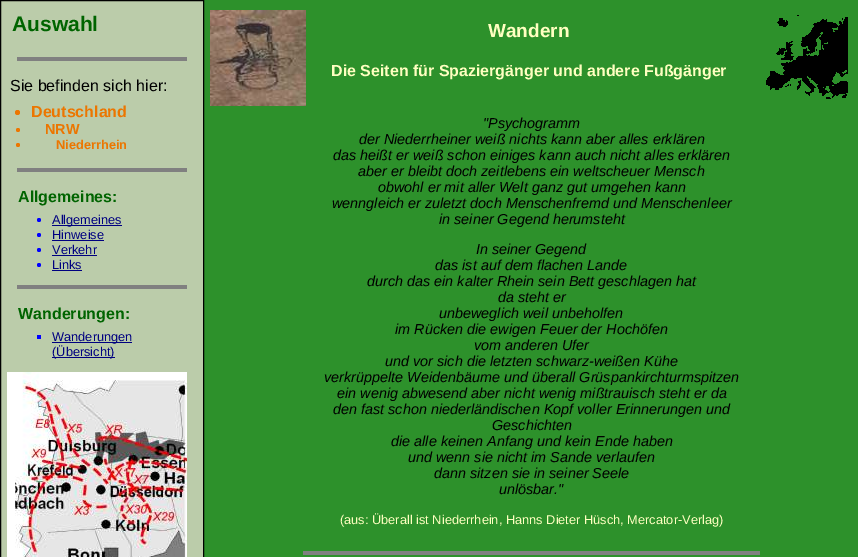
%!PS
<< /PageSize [858 557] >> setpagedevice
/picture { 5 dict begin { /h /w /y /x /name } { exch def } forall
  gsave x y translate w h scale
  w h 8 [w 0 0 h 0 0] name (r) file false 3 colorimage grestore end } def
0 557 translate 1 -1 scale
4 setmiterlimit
0.176 0.569 0.169 setrgbcolor
0 0 858 557 rectfill
0.733 0.8 0.667 setrgbcolor
newpath 0.5 0.5 moveto 203.5 0.5 lineto 203.5 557.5 lineto 0.5 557.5 lineto closepath gsave fill grestore
0 setgray
stroke
/LiberationSans-Bold [21 0 0 -21 0 0] selectfont
0 0.392 0 setrgbcolor
12 31 moveto (Auswahl) show
0.502 setgray
17 57 170 4 rectfill
/LiberationSans-Regular [16 0 0 -16 0 0] selectfont
0 setgray
10 91 moveto (Sie befinden sich hier:) show
0.925 0.463 0 setrgbcolor
newpath 17.5 112.5 2.5 0 360 arc closepath fill
/LiberationSans-Bold [16 0 0 -16 0 0] selectfont
31 117 moveto (Deutschland) show
newpath 18 130 2 0 360 arc closepath fill
/LiberationSans-Bold [14.4 0 0 -14.4 0 0] selectfont
45 134 moveto (NRW) show
newpath 18 145 2 0 360 arc closepath fill
/LiberationSans-Bold [12.8 0 0 -12.8 0 0] selectfont
56 149 moveto (Niederrhein) show
0.502 setgray
17 168 170 4 rectfill
/LiberationSans-Bold [16 0 0 -16 0 0] selectfont
0 0.392 0 setrgbcolor
18 202 moveto (Allgemeines:) show
0 0 1 setrgbcolor
newpath 39 220 2 0 360 arc closepath fill
0 0 0.502 setrgbcolor
52 225 70 1 rectfill
/LiberationSans-Regular [12.8 0 0 -12.8 0 0] selectfont
52 224 moveto (Allgemeines) show
0 0 1 setrgbcolor
newpath 39 235 2 0 360 arc closepath fill
0 0 0.502 setrgbcolor
52 239 moveto (Hinweise) show
52 240 52 1 rectfill
0 0 1 setrgbcolor
newpath 39 250 2 0 360 arc closepath fill
0 0 0.502 setrgbcolor
52 254 moveto (Verkehr) show
52 255 45 1 rectfill
0 0 1 setrgbcolor
newpath 39 265 2 0 360 arc closepath fill
0 0 0.502 setrgbcolor
52 269 moveto (Links) show
52 270 30 1 rectfill
0.502 setgray
17 285 170 4 rectfill
/LiberationSans-Bold [16 0 0 -16 0 0] selectfont
0 0.392 0 setrgbcolor
18 319 moveto (Wanderungen:) show
0 0 1 setrgbcolor
37 335 4 4 rectfill
0 0 0.502 setrgbcolor
52 342 80 1 rectfill
/LiberationSans-Regular [12.8 0 0 -12.8 0 0] selectfont
52 341 moveto (Wanderungen) show
52 357 63 1 rectfill
52 356 moveto (\(Übersicht\)) show
(img1.rgb) 7 372 180 185 picture
(img2.rgb) 210 10 96 96 picture
/LiberationSans-Bold [19 0 0 -19 0 0] selectfont
1 1 0.757 setrgbcolor
488 37 moveto (Wandern) show
(img3.rgb) 766 15 82 84 picture
/LiberationSans-Bold [16 0 0 -16 0 0] selectfont
331 76 moveto (Die Seiten für Spaziergänger und andere Fußgänger) show
/LiberationSans-Italic [14.4 0 0 -14.4 0 0] selectfont
0 setgray
483 128 moveto ("Psychogramm) show
359 144 moveto (der Niederrheiner weiß nichts kann aber alles erklären) show
333 160 moveto (das heißt er weiß schon einiges kann auch nicht alles erklären) show
358 176 moveto (aber er bleibt doch zeitlebens ein weltscheuer Mensch) show
378 192 moveto (obwohl er mit aller Welt ganz gut umgehen kann) show
332 208 moveto (wenngleich er zuletzt doch Menschenfremd und Menschenleer) show
439 224 moveto (in seiner Gegend herumsteht) show
476 254 moveto (In seiner Gegend) show
435 270 moveto (das ist auf dem flachen Lande) show
367 286 moveto (durch das ein kalter Rhein sein Bett geschlagen hat) show
498 302 moveto (da steht er) show
439 318 moveto (unbeweglich weil unbeholfen) show
395 334 moveto (im Rücken die ewigen Feuer der Hochöfen) show
474 350 moveto (vom anderen Ufer) show
385 366 moveto (und vor sich die letzten schwarz-weißen Kühe) show
324 382 moveto (verkrüppelte Weidenbäume und überall Grüspankirchturmspitzen) show
337 398 moveto (ein wenig abwesend aber nicht wenig mißtrauisch steht er da) show
333 414 moveto (den fast schon niederländischen Kopf voller Erinnerungen und) show
492 430 moveto (Geschichten) show
391 446 moveto (die alle keinen Anfang und kein Ende haben) show
408 462 moveto (und wenn sie nicht im Sande verlaufen) show
434 478 moveto (dann sitzen sie in seiner Seele) show
499 494 moveto (unlösbar.") show
/LiberationSans-Regular [12.8 0 0 -12.8 0 0] selectfont
1 1 0.757 setrgbcolor
340 524 moveto (\(aus: Überall ist Niederrhein, Hanns Dieter Hüsch, Mercator-Verlag\)) show
0.502 setgray
303 551 457 4 rectfill
showpage
